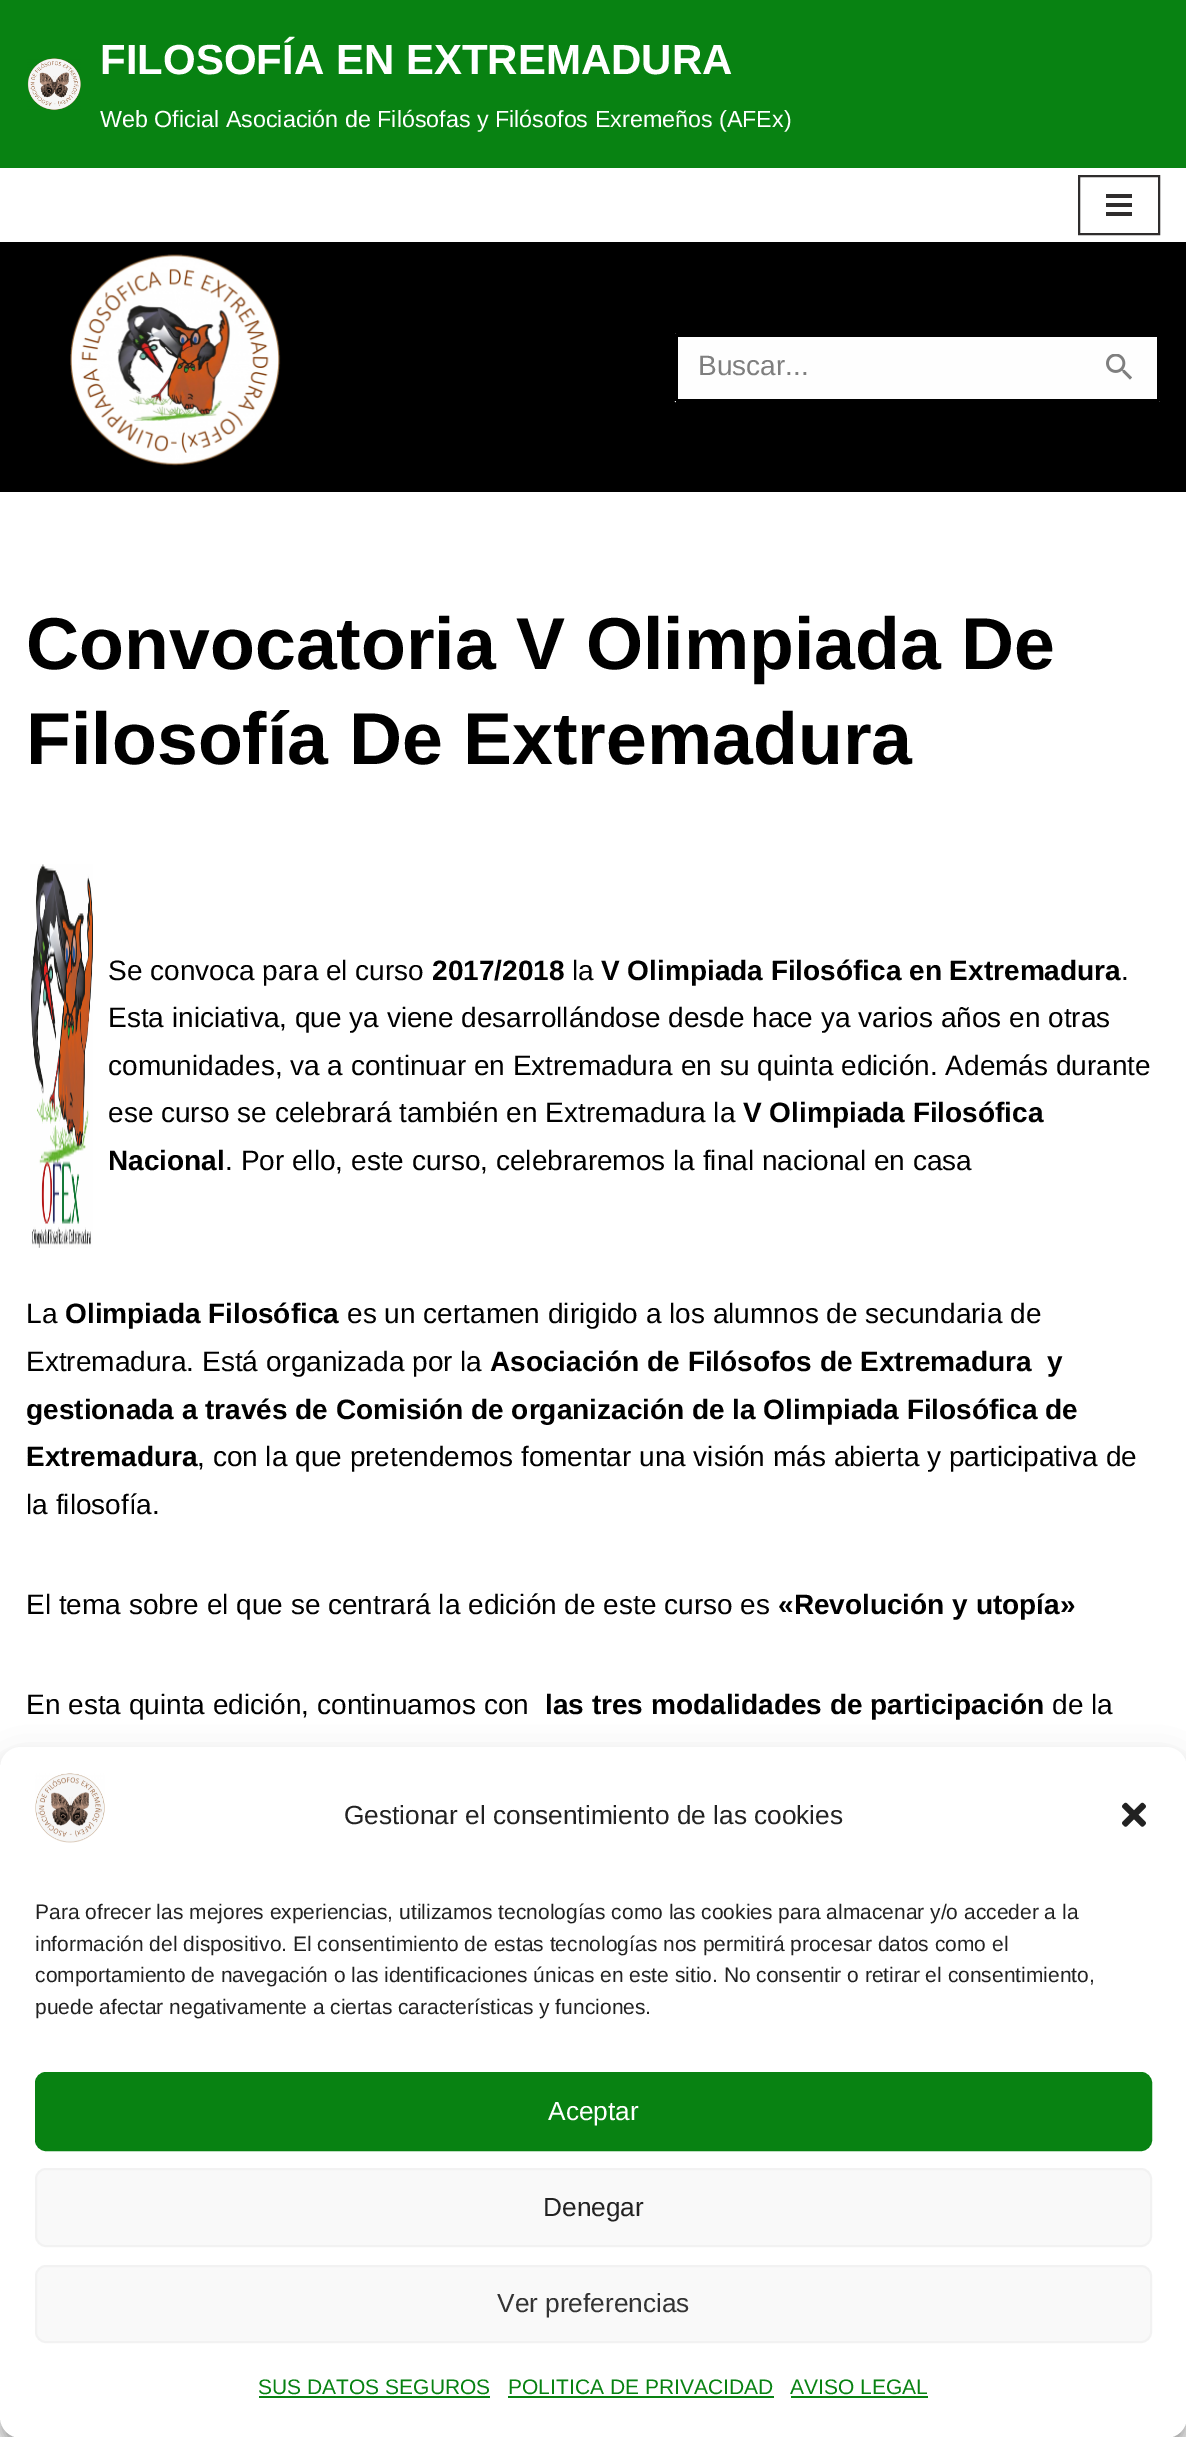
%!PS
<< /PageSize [1186 2437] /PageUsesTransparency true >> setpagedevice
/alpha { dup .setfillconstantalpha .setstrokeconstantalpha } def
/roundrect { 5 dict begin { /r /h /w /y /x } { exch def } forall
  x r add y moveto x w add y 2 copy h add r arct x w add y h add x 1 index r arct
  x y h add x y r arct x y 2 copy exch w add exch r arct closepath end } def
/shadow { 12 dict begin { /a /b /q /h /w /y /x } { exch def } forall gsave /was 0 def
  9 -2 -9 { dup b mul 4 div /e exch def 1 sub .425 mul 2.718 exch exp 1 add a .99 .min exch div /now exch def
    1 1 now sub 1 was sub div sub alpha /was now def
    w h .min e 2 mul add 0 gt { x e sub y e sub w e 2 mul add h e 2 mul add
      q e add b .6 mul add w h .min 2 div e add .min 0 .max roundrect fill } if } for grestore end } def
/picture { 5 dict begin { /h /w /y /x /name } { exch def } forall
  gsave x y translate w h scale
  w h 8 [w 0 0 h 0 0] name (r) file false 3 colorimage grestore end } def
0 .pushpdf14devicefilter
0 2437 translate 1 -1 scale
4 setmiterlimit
1 setgray
0 0 1186 2437 rectfill
0.031 0.51 0.071 setrgbcolor
0 0 1186 168 rectfill
(img1.rgb) 27 58 54 53 picture
/LiberationSans-Bold [42 0 0 -42 0 0] selectfont
1 setgray
100 74 moveto (FILOSOFÍA EN EXTREMADURA) show
/LiberationSans-Regular [23.3 0 0 -23.3 0 0] selectfont
100 127 moveto (Web Oficial Asociación de Filósofas y Filósofos Exremeños \(AFEx\)) show
0.184 0.176 0.176 setrgbcolor
2 setlinewidth
1079 176 80 58 rectstroke
1106 194 26 4 rectfill
1106 203 26 4 rectfill
1106 212 26 4 rectfill
0 setgray
0 242 1186 250 rectfill
(img2.rgb) 70 254 211 212 picture
0.996 setgray
newpath 678 333 moveto 1082 333 lineto 1082 403 lineto 678 403 lineto 676 403 674 401 674 399 curveto 674 337 lineto 674 335 676 333 678 333 curveto closepath fill
0 setgray
676 333 406 4 rectfill
676 399 406 4 rectfill
674 334 4 67 rectfill
/LiberationSans-Regular [28 0 0 -28 0 0] selectfont
0.498 setgray
698 375 moveto (Buscar...) show
0.996 setgray
newpath 1082 333 moveto 1156 333 lineto 1158 333 1160 335 1160 337 curveto 1160 399 lineto 1160 401 1158 403 1156 403 curveto 1082 403 lineto closepath fill
0 setgray
1082 333 77 4 rectfill
1157 334 3 67 rectfill
1082 399 77 4 rectfill
(img3.rgb) 1106 354 26 26 picture
/LiberationSans-Bold [73.5 0 0 -73.5 0 0] selectfont
26 669 moveto (Convocatoria V Olimpiada De) show
26 764 moveto (Filosofía De Extremadura) show
(img4.rgb) 30 864 63 384 picture
/LiberationSans-Regular [28 0 0 -28 0 0] selectfont
108 980 moveto (Se convoca para el curso) show
/LiberationSans-Bold [28 0 0 -28 0 0] selectfont
432 980 moveto (2017/2018) show
/LiberationSans-Regular [28 0 0 -28 0 0] selectfont
572 980 moveto (la) show
/LiberationSans-Bold [28 0 0 -28 0 0] selectfont
601 980 moveto (V Olimpiada Filosófica en Extremadura) show
/LiberationSans-Regular [28 0 0 -28 0 0] selectfont
1121 980 moveto (.) show
108 1027 moveto (Esta iniciativa, que ya viene desarrollándose desde hace ya varios años en otras) show
108 1075 moveto (comunidades, va a continuar en Extremadura en su quinta edición. Además durante) show
108 1122 moveto (ese curso se celebrará también en Extremadura la) show
/LiberationSans-Bold [28 0 0 -28 0 0] selectfont
743 1122 moveto (V Olimpiada Filosófica) show
108 1170 moveto (Nacional) show
/LiberationSans-Regular [28 0 0 -28 0 0] selectfont
225 1170 moveto (. Por ello, este curso, celebraremos la final nacional en casa) show
26 1323 moveto (La) show
/LiberationSans-Bold [28 0 0 -28 0 0] selectfont
65 1323 moveto (Olimpiada Filosófica) show
/LiberationSans-Regular [28 0 0 -28 0 0] selectfont
347 1323 moveto (es un certamen dirigido a los alumnos de secundaria de) show
26 1371 moveto (Extremadura. Está organizada por la) show
/LiberationSans-Bold [28 0 0 -28 0 0] selectfont
490 1371 moveto (Asociación de Filósofos de Extremadura  y) show
26 1419 moveto (gestionada a través de Comisión de organización de la Olimpiada Filosófica de) show
26 1466 moveto (Extremadura) show
/LiberationSans-Regular [28 0 0 -28 0 0] selectfont
197 1466 moveto (, con la que pretendemos fomentar una visión más abierta y participativa de) show
26 1514 moveto (la filosofía.) show
26 1614 moveto (El tema sobre el que se centrará la edición de este curso es) show
/LiberationSans-Bold [28 0 0 -28 0 0] selectfont
778 1614 moveto («Revolución y utopía») show
/LiberationSans-Regular [28 0 0 -28 0 0] selectfont
26 1714 moveto (En esta quinta edición, continuamos con) show
/LiberationSans-Bold [28 0 0 -28 0 0] selectfont
545 1714 moveto (las tres modalidades de participación) show
/LiberationSans-Regular [28 0 0 -28 0 0] selectfont
1052 1714 moveto (de la) show
0 1757 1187 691 21 5 0.23 shadow
0 1764 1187 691 21 17.5 0.19 shadow
1 setgray
0 1747 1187 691 21 roundrect fill
(img5.rgb) 35 1773 70 70 picture
/LiberationSans-Regular [26.25 0 0 -26.25 0 0] selectfont
0.133 setgray
344 1824 moveto (Gestionar el consentimiento de las cookies) show
(img6.rgb) 1122 1802 24 25 picture
/LiberationSans-Regular [21 0 0 -21 0 0] selectfont
35 1919 moveto (Para ofrecer las mejores experiencias, utilizamos tecnologías como las cookies para almacenar y/o acceder a la) show
35 1951 moveto (información del dispositivo. El consentimiento de estas tecnologías nos permitirá procesar datos como el) show
35 1982 moveto (comportamiento de navegación o las identificaciones únicas en este sitio. No consentir o retirar el consentimiento,) show
35 2014 moveto (puede afectar negativamente a ciertas características y funciones.) show
0.031 0.51 0.071 setrgbcolor
36 2073 1115 77 10 roundrect gsave fill grestore
stroke
/LiberationSans-Regular [26.25 0 0 -26.25 0 0] selectfont
1 setgray
548 2120 moveto (Aceptar) show
0.976 setgray
36 2169 1115 77 10 roundrect gsave fill grestore
0.949 setgray
stroke
0.133 setgray
543 2216 moveto (Denegar) show
0.976 setgray
36 2266 1115 76 10 roundrect gsave fill grestore
0.949 setgray
stroke
0.2 setgray
497 2312 moveto (Ver preferencias) show
/LiberationSans-Regular [21 0 0 -21 0 0] selectfont
0.031 0.51 0.071 setrgbcolor
258 2394 moveto (SUS DATOS SEGUROS) show
259 2396 231 2 rectfill
508 2394 moveto (POLITICA DE PRIVACIDAD) show
508 2396 266 2 rectfill
790 2394 moveto (AVISO LEGAL) show
791 2396 137 2 rectfill
.poppdf14devicefilter showpage
